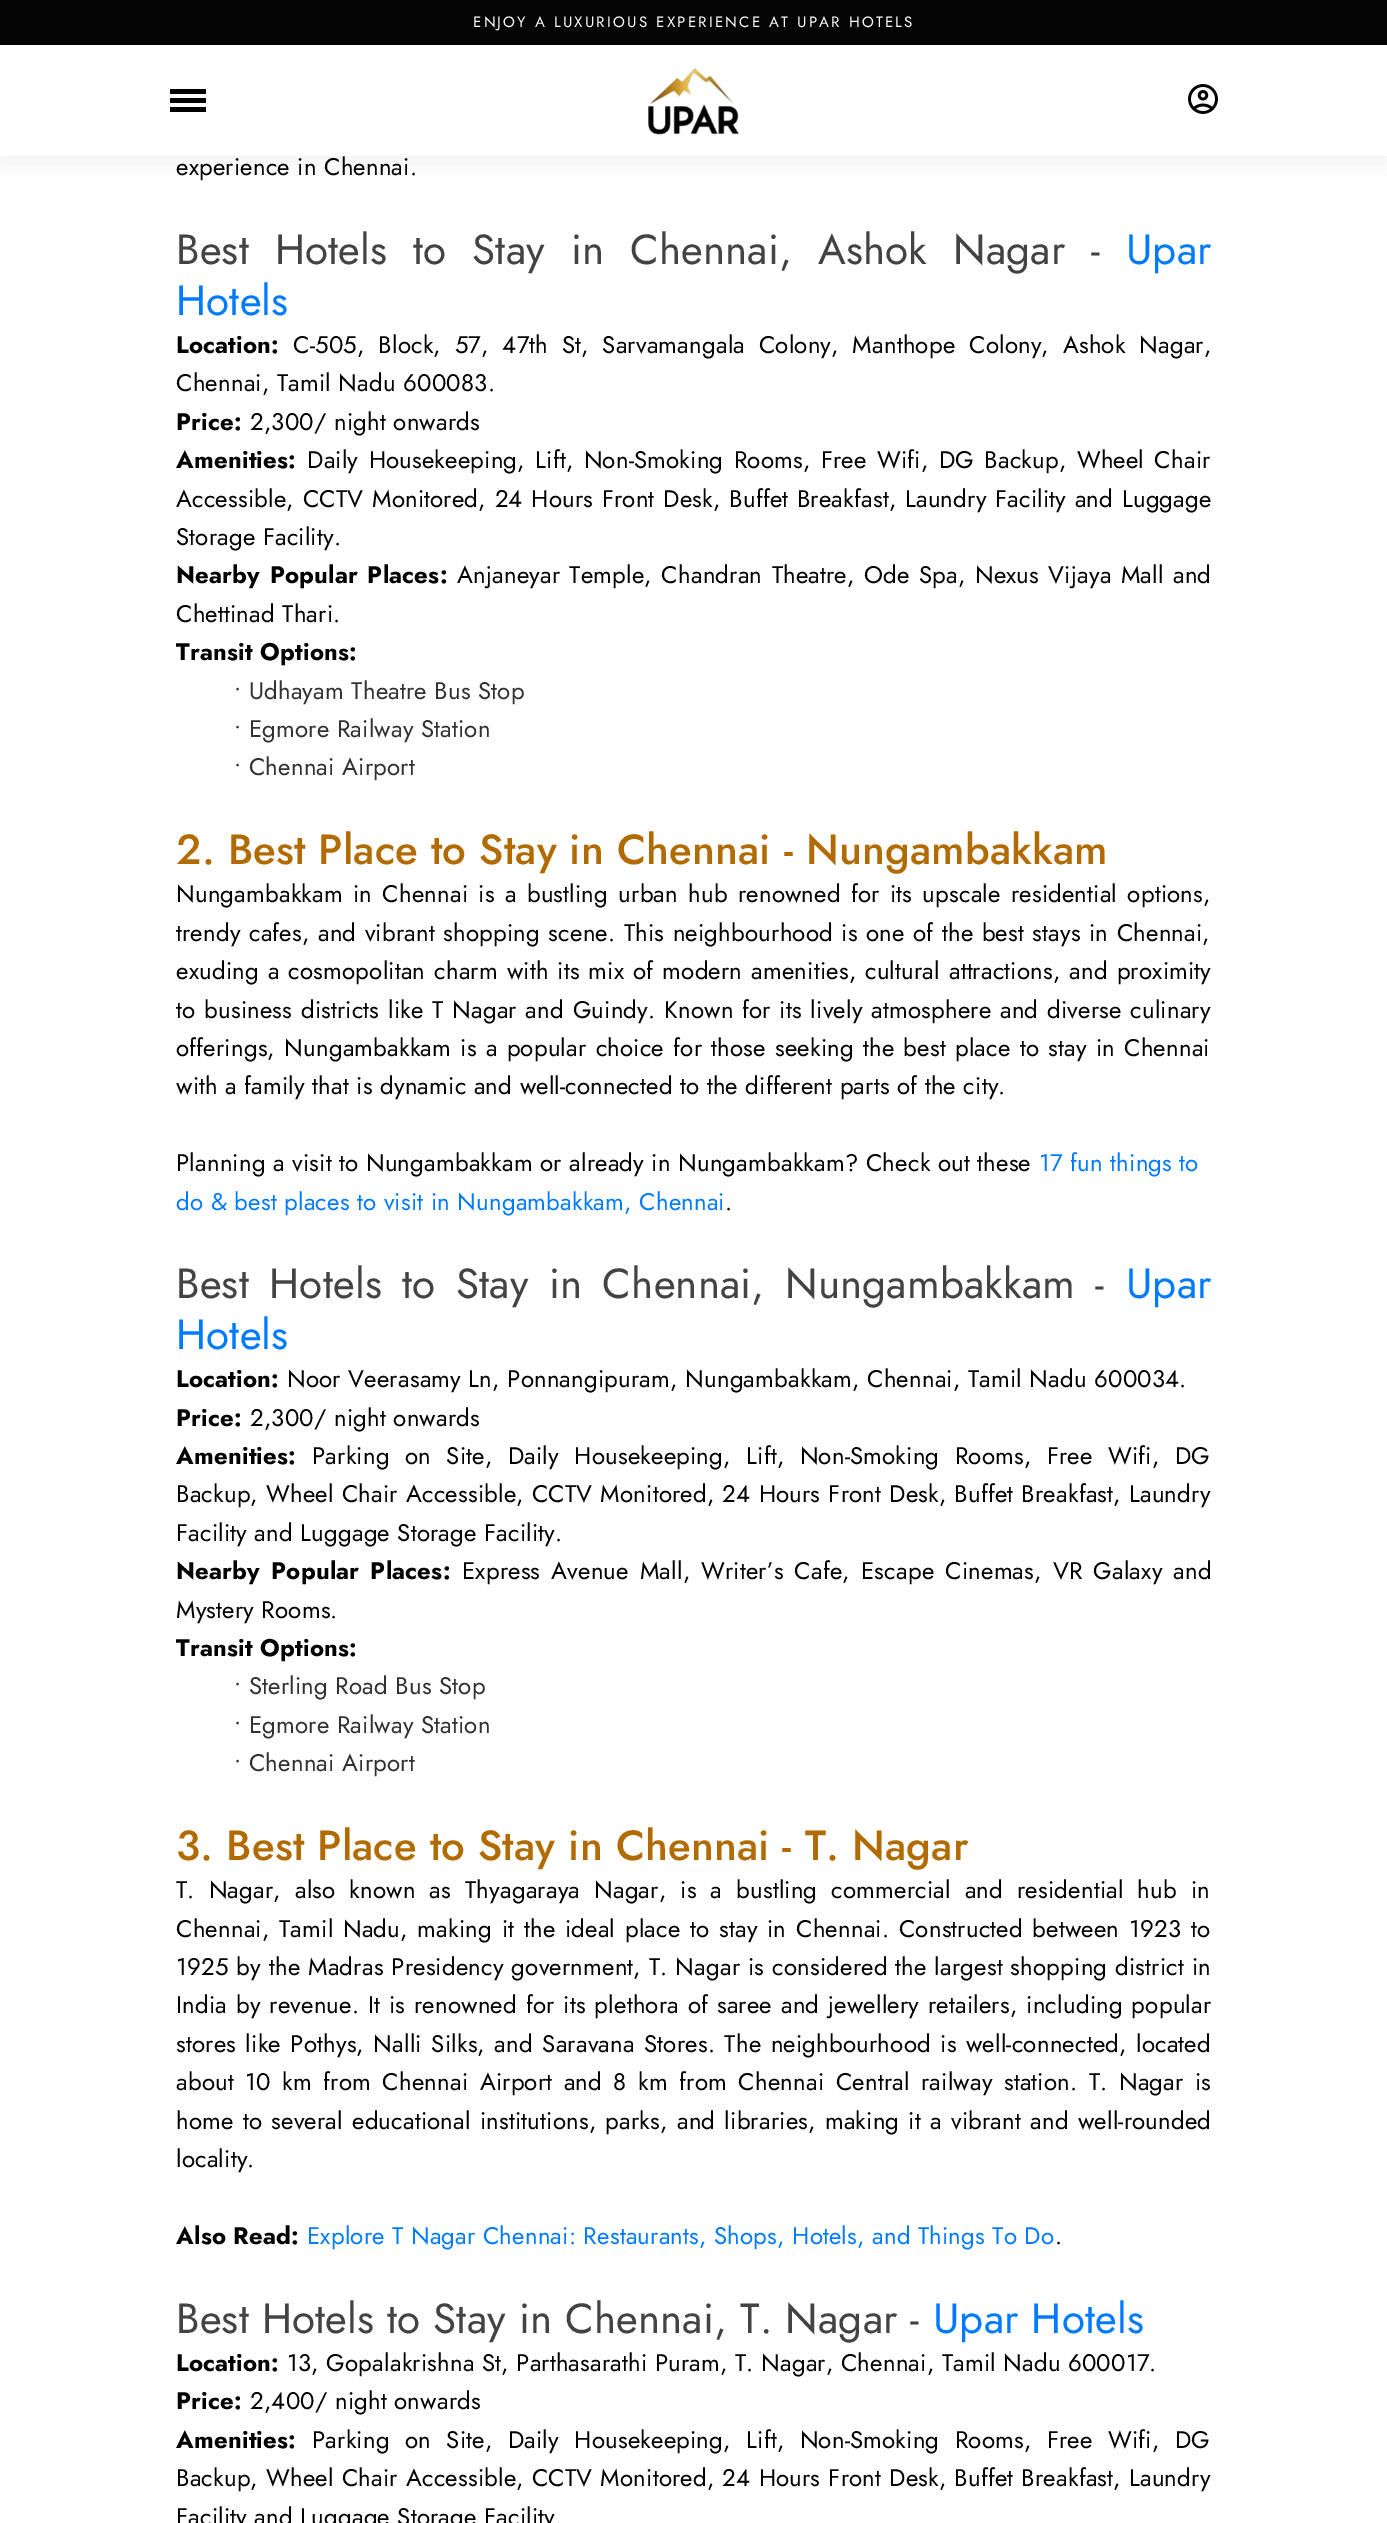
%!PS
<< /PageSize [1387 2523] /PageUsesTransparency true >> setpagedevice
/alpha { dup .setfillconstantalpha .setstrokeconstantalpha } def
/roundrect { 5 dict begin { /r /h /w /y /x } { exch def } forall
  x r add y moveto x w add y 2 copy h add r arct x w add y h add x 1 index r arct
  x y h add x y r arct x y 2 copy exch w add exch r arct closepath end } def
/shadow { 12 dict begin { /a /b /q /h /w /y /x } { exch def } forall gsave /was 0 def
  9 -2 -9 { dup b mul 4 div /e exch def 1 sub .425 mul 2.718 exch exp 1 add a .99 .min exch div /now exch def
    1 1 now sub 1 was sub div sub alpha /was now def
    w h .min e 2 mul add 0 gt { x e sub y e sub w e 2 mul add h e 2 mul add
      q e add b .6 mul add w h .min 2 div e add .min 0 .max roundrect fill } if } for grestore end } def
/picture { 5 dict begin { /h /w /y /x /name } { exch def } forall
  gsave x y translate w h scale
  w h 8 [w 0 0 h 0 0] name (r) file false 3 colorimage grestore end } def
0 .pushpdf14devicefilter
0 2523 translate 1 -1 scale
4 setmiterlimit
1 setgray
0 0 1387 2523 rectfill
0 setgray
0 6 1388 156 0 12 0.05 shadow
1 setgray
0 45 1387 111 rectfill
0.016 setgray
0 0 1387 45 rectfill
/Jost-Regular [15 0 0 -15 0 0] selectfont
1 setgray
473 27 moveto 2.25 0 (ENJOY A LUXURIOUS EXPERIENCE AT UPAR HOTELS) ashow
0 setgray
170 98 36 5 rectfill
170 89 36 5 rectfill
170 107 36 5 rectfill
(img1.rgb) 648 67 91 68 picture
(img2.rgb) 1188 84 30 30 picture
/Jost-Regular [24 0 0 -24 0 0] selectfont
176 175 moveto 0.21 0 (experience in Chennai.) ashow
/Jost-Regular [42 0 0 -42 0 0] selectfont
0.263 setgray
176 264 moveto 13 0 32 0.21 0 (Best Hotels to Stay in Chennai, Ashok Nagar -) awidthshow
0 0.482 1 setrgbcolor
1126 264 moveto 0.21 0 (Upar) ashow
176 315 moveto 0.21 0 (Hotels) ashow
/Jost-Bold [24 0 0 -24 0 0] selectfont
0 setgray
176 353 moveto 0.21 0 (Location:) ashow
/Jost-Regular [24 0 0 -24 0 0] selectfont
293 353 moveto 6.25 0 32 0.21 0 (C-505, Block, 57, 47th St, Sarvamangala Colony, Manthope Colony, Ashok Nagar,) awidthshow
176 391 moveto 0.21 0 (Chennai, Tamil Nadu 600083.) ashow
/Jost-Bold [24 0 0 -24 0 0] selectfont
176 430 moveto 0.21 0 (Price:) ashow
/Jost-Regular [24 0 0 -24 0 0] selectfont
250 430 moveto 0.21 0 (2,300/ night onwards) ashow
/Jost-Bold [24 0 0 -24 0 0] selectfont
176 468 moveto 0.21 0 (Amenities:) ashow
/Jost-Regular [24 0 0 -24 0 0] selectfont
307 468 moveto 2.9 0 32 0.21 0 (Daily Housekeeping, Lift, Non-Smoking Rooms, Free Wifi, DG Backup, Wheel Chair) awidthshow
176 507 moveto 1.25 0 32 0.21 0 (Accessible, CCTV Monitored, 24 Hours Front Desk, Buffet Breakfast, Laundry Facility and Luggage) awidthshow
176 545 moveto 0.21 0 (Storage Facility.) ashow
/Jost-Bold [24 0 0 -24 0 0] selectfont
176 583 moveto 2 0 32 0.21 0 (Nearby Popular Places:) awidthshow
/Jost-Regular [24 0 0 -24 0 0] selectfont
457 583 moveto 1.9 0 32 0.21 0 (Anjaneyar Temple, Chandran Theatre, Ode Spa, Nexus Vijaya Mall and) awidthshow
176 622 moveto 0.21 0 (Chettinad Thari.) ashow
/Jost-Bold [24 0 0 -24 0 0] selectfont
176 660 moveto 0.21 0 (Transit Options:) ashow
/Jost-Regular [24 0 0 -24 0 0] selectfont
0.192 setgray
234 699 moveto 0.21 0 (• Udhayam Theatre Bus Stop) ashow
234 737 moveto 0.21 0 (• Egmore Railway Station) ashow
234 775 moveto 0.21 0 (• Chennai Airport) ashow
/Jost-Medium [42 0 0 -42 0 0] selectfont
0.698 0.42 0 setrgbcolor
176 864 moveto 0.21 0 (2. Best Place to Stay in Chennai - Nungambakkam) ashow
/Jost-Regular [24 0 0 -24 0 0] selectfont
0 setgray
176 902 moveto 2.75 0 32 0.21 0 (Nungambakkam in Chennai is a bustling urban hub renowned for its upscale residential options,) awidthshow
176 941 moveto 1 0 32 0.21 0 (trendy cafes, and vibrant shopping scene. This neighbourhood is one of the best stays in Chennai,) awidthshow
176 979 moveto 1.5 0 32 0.21 0 (exuding a cosmopolitan charm with its mix of modern amenities, cultural attractions, and proximity) awidthshow
176 1018 moveto 1.25 0 32 0.21 0 (to business districts like T Nagar and Guindy. Known for its lively atmosphere and diverse culinary) awidthshow
176 1056 moveto 1.75 0 32 0.21 0 (offerings, Nungambakkam is a popular choice for those seeking the best place to stay in Chennai) awidthshow
176 1094 moveto 0.21 0 (with a family that is dynamic and well-connected to the different parts of the city.) ashow
176 1171 moveto 0.21 0 (Planning a visit to Nungambakkam or already in Nungambakkam? Check out these) ashow
0 0.482 1 setrgbcolor
1039 1171 moveto 0.21 0 (17 fun things to) ashow
176 1210 moveto 0.21 0 (do & best places to visit in Nungambakkam, Chennai) ashow
0 setgray
725 1210 moveto 0.21 0 (.) ashow
/Jost-Regular [42 0 0 -42 0 0] selectfont
0.263 setgray
176 1298 moveto 7.5 0 32 0.21 0 (Best Hotels to Stay in Chennai, Nungambakkam -) awidthshow
0 0.482 1 setrgbcolor
1126 1298 moveto 0.21 0 (Upar) ashow
176 1349 moveto 0.21 0 (Hotels) ashow
/Jost-Bold [24 0 0 -24 0 0] selectfont
0 setgray
176 1387 moveto 0.21 0 (Location:) ashow
/Jost-Regular [24 0 0 -24 0 0] selectfont
287 1387 moveto 0.21 0 (Noor Veerasamy Ln, Ponnangipuram, Nungambakkam, Chennai, Tamil Nadu 600034.) ashow
/Jost-Bold [24 0 0 -24 0 0] selectfont
176 1426 moveto 0.21 0 (Price:) ashow
/Jost-Regular [24 0 0 -24 0 0] selectfont
250 1426 moveto 0.21 0 (2,300/ night onwards) ashow
/Jost-Bold [24 0 0 -24 0 0] selectfont
176 1464 moveto 0.21 0 (Amenities:) ashow
/Jost-Regular [24 0 0 -24 0 0] selectfont
312 1464 moveto 8 0 32 0.21 0 (Parking on Site, Daily Housekeeping, Lift, Non-Smoking Rooms, Free Wifi, DG) awidthshow
176 1502 moveto 0.6 0 32 0.21 0 (Backup, Wheel Chair Accessible, CCTV Monitored, 24 Hours Front Desk, Buffet Breakfast, Laundry) awidthshow
176 1541 moveto 0.21 0 (Facility and Luggage Storage Facility.) ashow
/Jost-Bold [24 0 0 -24 0 0] selectfont
176 1579 moveto 3.5 0 32 0.21 0 (Nearby Popular Places:) awidthshow
/Jost-Regular [24 0 0 -24 0 0] selectfont
462 1579 moveto 3.5 0 32 0.21 0 (Express Avenue Mall, Writer’s Cafe, Escape Cinemas, VR Galaxy and) awidthshow
176 1618 moveto 0.21 0 (Mystery Rooms.) ashow
/Jost-Bold [24 0 0 -24 0 0] selectfont
176 1656 moveto 0.21 0 (Transit Options:) ashow
/Jost-Regular [24 0 0 -24 0 0] selectfont
0.192 setgray
234 1694 moveto 0.21 0 (• Sterling Road Bus Stop) ashow
234 1733 moveto 0.21 0 (• Egmore Railway Station) ashow
234 1771 moveto 0.21 0 (• Chennai Airport) ashow
/Jost-Medium [42 0 0 -42 0 0] selectfont
0.698 0.42 0 setrgbcolor
176 1860 moveto 0.21 0 (3. Best Place to Stay in Chennai - T. Nagar) ashow
/Jost-Regular [24 0 0 -24 0 0] selectfont
0 setgray
176 1898 moveto 6.5 0 32 0.21 0 (T. Nagar, also known as Thyagaraya Nagar, is a bustling commercial and residential hub in) awidthshow
176 1937 moveto 2.25 0 32 0.21 0 (Chennai, Tamil Nadu, making it the ideal place to stay in Chennai. Constructed between 1923 to) awidthshow
176 1975 moveto 0.4 0 32 0.21 0 (1925 by the Madras Presidency government, T. Nagar is considered the largest shopping district in) awidthshow
176 2013 moveto 1.4 0 32 0.21 0 (India by revenue. It is renowned for its plethora of saree and jewellery retailers, including popular) awidthshow
176 2052 moveto 2 0 32 0.21 0 (stores like Pothys, Nalli Silks, and Saravana Stores. The neighbourhood is well-connected, located) awidthshow
176 2090 moveto 4 0 32 0.21 0 (about 10 km from Chennai Airport and 8 km from Chennai Central railway station. T. Nagar is) awidthshow
176 2129 moveto 1.75 0 32 0.21 0 (home to several educational institutions, parks, and libraries, making it a vibrant and well-rounded) awidthshow
176 2167 moveto 0.21 0 (locality.) ashow
/Jost-Bold [24 0 0 -24 0 0] selectfont
176 2244 moveto 0.21 0 (Also Read:) ashow
/Jost-Regular [24 0 0 -24 0 0] selectfont
0 0.482 1 setrgbcolor
307 2244 moveto 0.21 0 (Explore T Nagar Chennai: Restaurants, Shops, Hotels, and Things To Do) ashow
0 setgray
1055 2244 moveto 0.21 0 (.) ashow
/Jost-Regular [42 0 0 -42 0 0] selectfont
0.263 setgray
176 2333 moveto 0.21 0 (Best Hotels to Stay in Chennai, T. Nagar -) ashow
0 0.482 1 setrgbcolor
933 2333 moveto 0.21 0 (Upar Hotels) ashow
/Jost-Bold [24 0 0 -24 0 0] selectfont
0 setgray
176 2371 moveto 0.21 0 (Location:) ashow
/Jost-Regular [24 0 0 -24 0 0] selectfont
287 2371 moveto 0.21 0 (13, Gopalakrishna St, Parthasarathi Puram, T. Nagar, Chennai, Tamil Nadu 600017.) ashow
/Jost-Bold [24 0 0 -24 0 0] selectfont
176 2409 moveto 0.21 0 (Price:) ashow
/Jost-Regular [24 0 0 -24 0 0] selectfont
250 2409 moveto 0.21 0 (2,400/ night onwards) ashow
/Jost-Bold [24 0 0 -24 0 0] selectfont
176 2448 moveto 0.21 0 (Amenities:) ashow
/Jost-Regular [24 0 0 -24 0 0] selectfont
312 2448 moveto 8 0 32 0.21 0 (Parking on Site, Daily Housekeeping, Lift, Non-Smoking Rooms, Free Wifi, DG) awidthshow
176 2486 moveto 0.6 0 32 0.21 0 (Backup, Wheel Chair Accessible, CCTV Monitored, 24 Hours Front Desk, Buffet Breakfast, Laundry) awidthshow
176 2525 moveto 0.21 0 (Facility and Luggage Storage Facility.) ashow
.poppdf14devicefilter showpage
